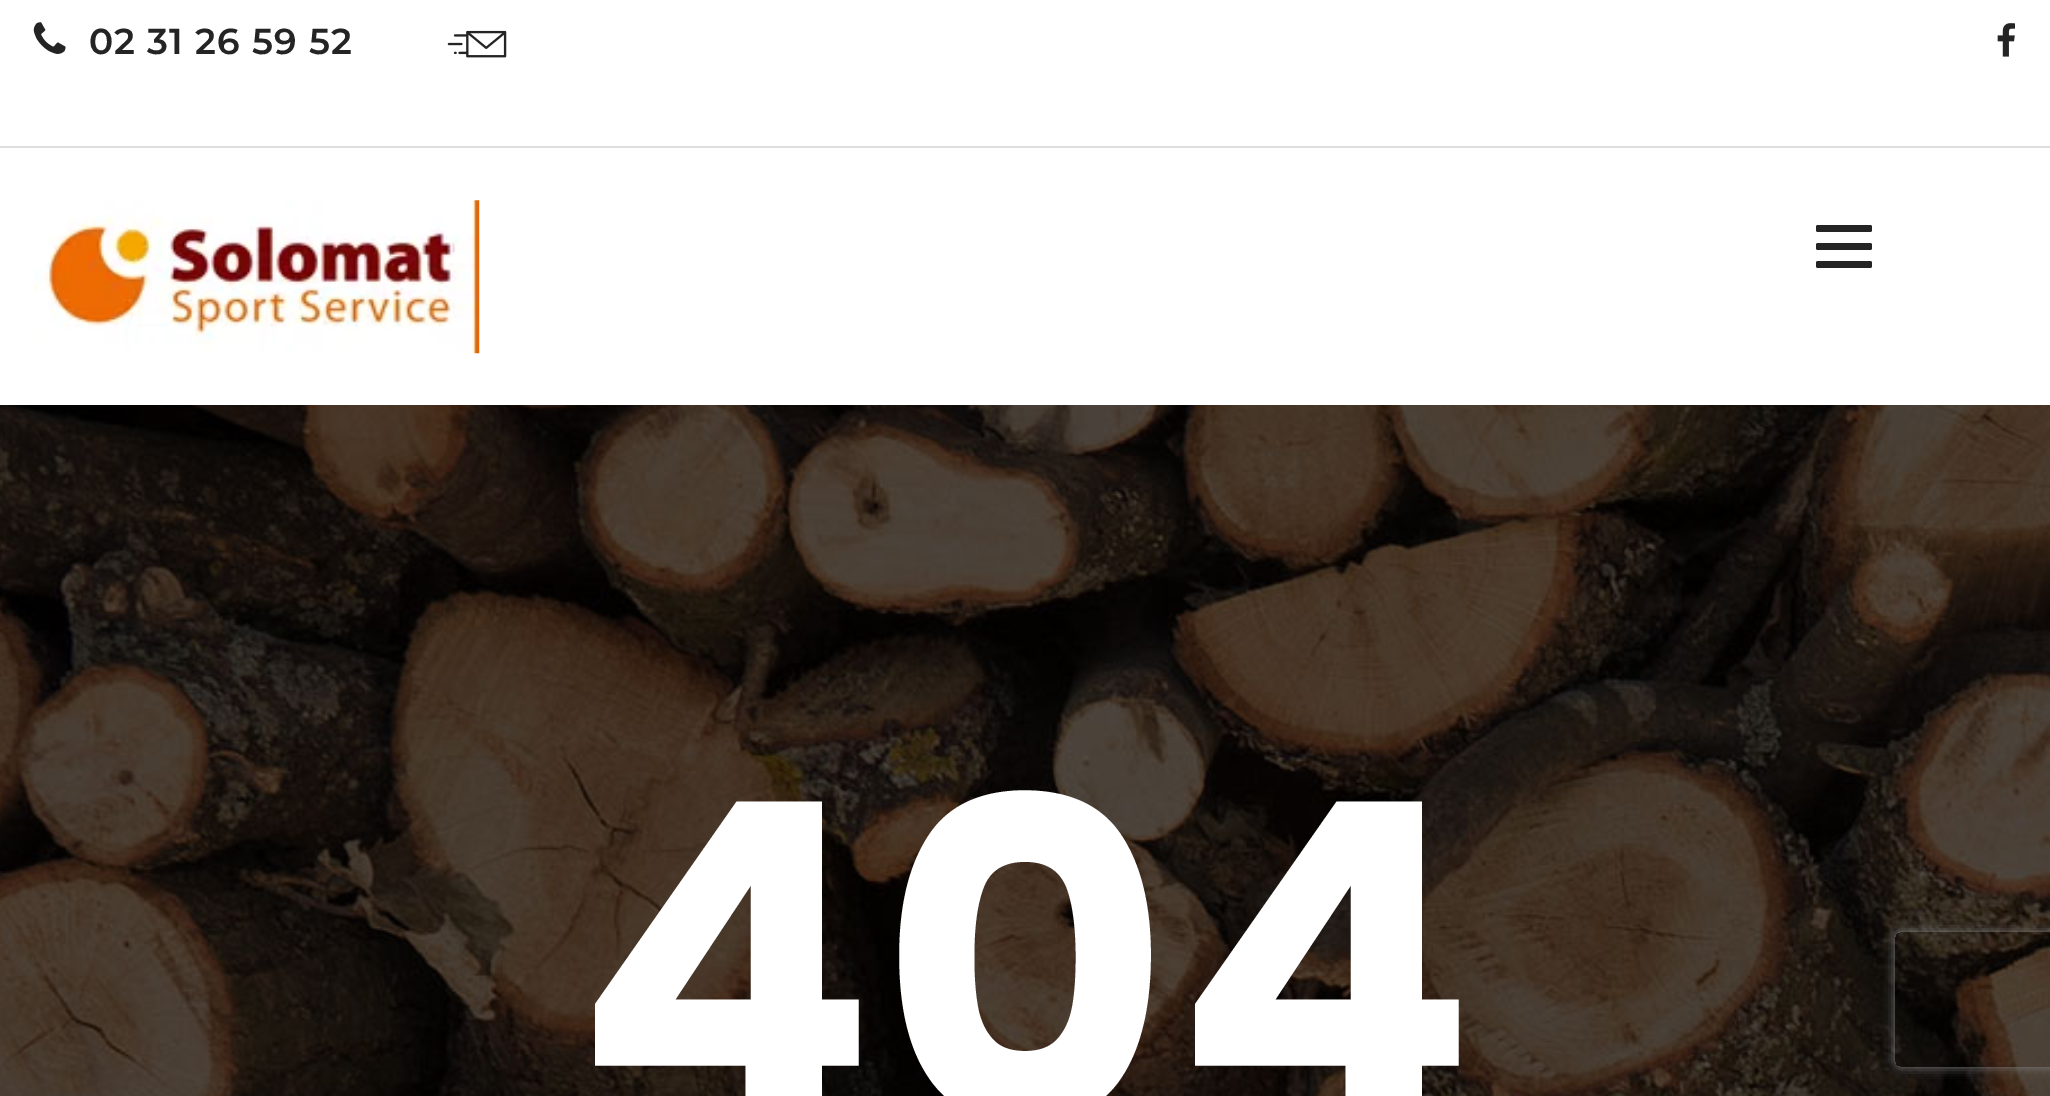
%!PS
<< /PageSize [2050 1096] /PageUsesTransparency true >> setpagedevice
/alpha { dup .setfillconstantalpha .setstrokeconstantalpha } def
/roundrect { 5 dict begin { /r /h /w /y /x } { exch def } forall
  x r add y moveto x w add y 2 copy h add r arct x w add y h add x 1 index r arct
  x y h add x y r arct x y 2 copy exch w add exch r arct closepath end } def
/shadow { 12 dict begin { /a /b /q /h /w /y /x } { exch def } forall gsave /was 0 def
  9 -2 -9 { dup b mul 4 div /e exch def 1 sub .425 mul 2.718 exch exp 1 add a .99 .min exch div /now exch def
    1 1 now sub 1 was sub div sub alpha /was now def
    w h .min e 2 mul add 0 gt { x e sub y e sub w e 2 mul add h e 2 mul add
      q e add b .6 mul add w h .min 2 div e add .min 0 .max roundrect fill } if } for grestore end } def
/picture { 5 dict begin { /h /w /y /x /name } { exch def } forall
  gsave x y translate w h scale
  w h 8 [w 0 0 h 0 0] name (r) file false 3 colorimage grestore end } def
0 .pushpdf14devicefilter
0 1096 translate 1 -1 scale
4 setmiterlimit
1 setgray
0 0 2050 1096 rectfill
(img1.rgb) 0 405 2050 691 picture
0.871 setgray
0 146 2050 2 rectfill
(img2.rgb) 33 22 33 32 picture
/Montserrat-SemiBold [36 0 0 -36 0 0] selectfont
0.141 setgray
89 54 moveto 1.1 0 (02 31 26 59 52) ashow
(img3.rgb) 447 30 60 28 picture
(img4.rgb) 1997 23 18 34 picture
(img5.rgb) 34 200 446 154 picture
1816 225 56 7 2 roundrect fill
1816 243 56 7 2 roundrect fill
1816 261 56 7 2 roundrect fill
/Poppins-Bold [450 0 0 -450 0 0] selectfont
1 setgray
573 1124 moveto 1.1 0 (404) ashow
gsave
newpath 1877 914 moveto 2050 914 lineto 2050 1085 lineto 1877 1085 lineto closepath 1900 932 moveto 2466 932 lineto 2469 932 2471 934 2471 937 curveto 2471 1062 lineto 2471 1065 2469 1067 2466 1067 curveto 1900 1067 lineto 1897 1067 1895 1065 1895 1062 curveto 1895 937 lineto 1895 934 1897 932 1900 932 curveto closepath eoclip newpath
0.502 setgray
1895 932 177 135 5 5.5 1 shadow
grestore
.poppdf14devicefilter showpage
